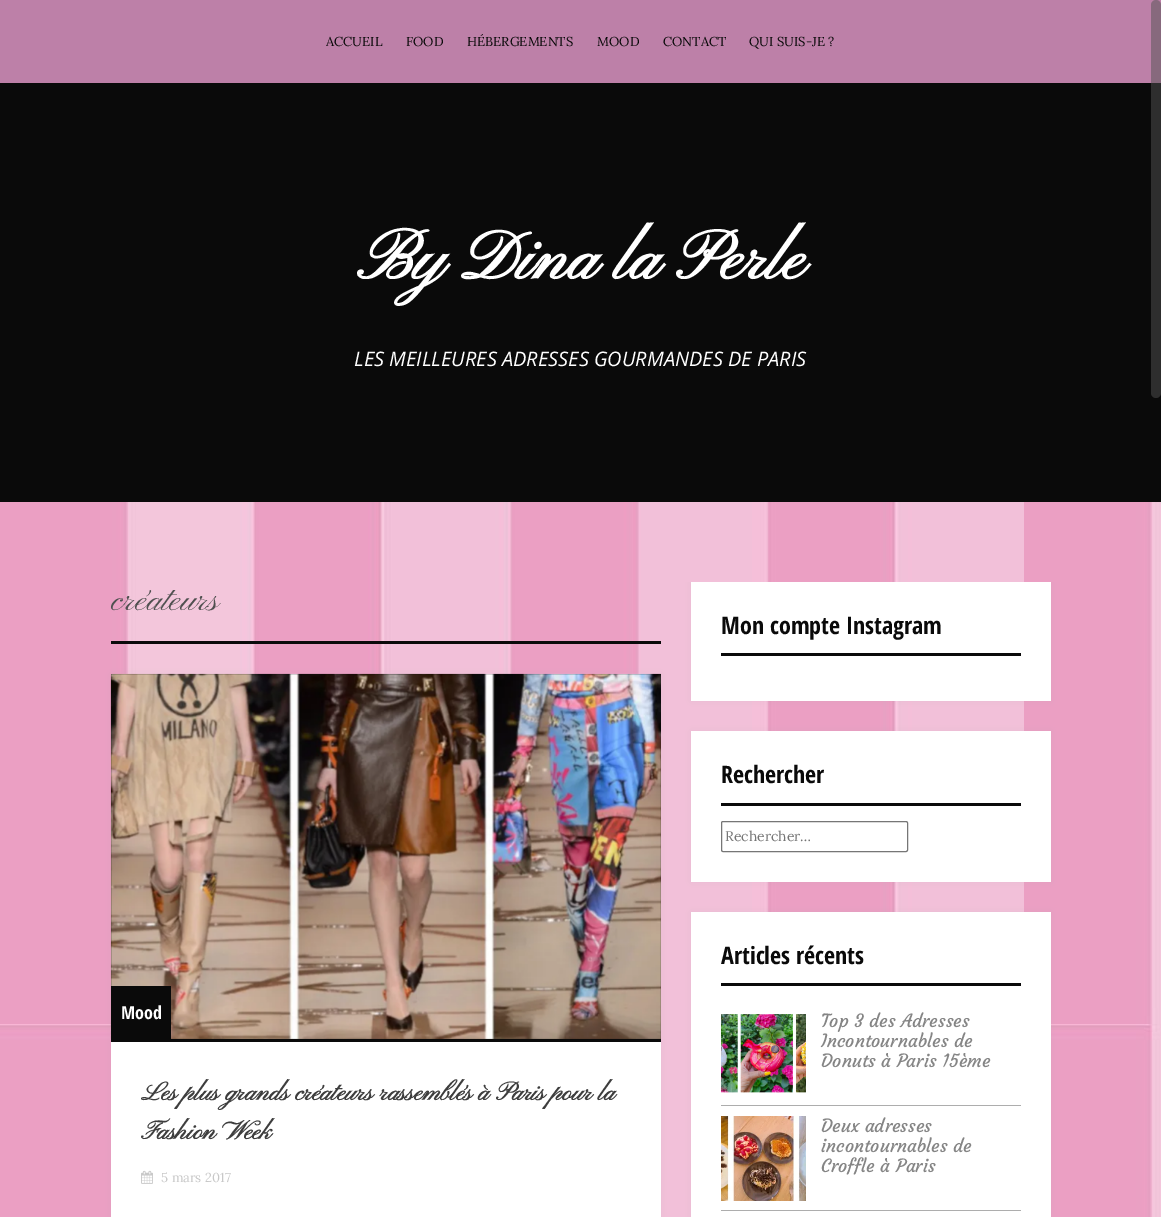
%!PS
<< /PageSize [1161 1217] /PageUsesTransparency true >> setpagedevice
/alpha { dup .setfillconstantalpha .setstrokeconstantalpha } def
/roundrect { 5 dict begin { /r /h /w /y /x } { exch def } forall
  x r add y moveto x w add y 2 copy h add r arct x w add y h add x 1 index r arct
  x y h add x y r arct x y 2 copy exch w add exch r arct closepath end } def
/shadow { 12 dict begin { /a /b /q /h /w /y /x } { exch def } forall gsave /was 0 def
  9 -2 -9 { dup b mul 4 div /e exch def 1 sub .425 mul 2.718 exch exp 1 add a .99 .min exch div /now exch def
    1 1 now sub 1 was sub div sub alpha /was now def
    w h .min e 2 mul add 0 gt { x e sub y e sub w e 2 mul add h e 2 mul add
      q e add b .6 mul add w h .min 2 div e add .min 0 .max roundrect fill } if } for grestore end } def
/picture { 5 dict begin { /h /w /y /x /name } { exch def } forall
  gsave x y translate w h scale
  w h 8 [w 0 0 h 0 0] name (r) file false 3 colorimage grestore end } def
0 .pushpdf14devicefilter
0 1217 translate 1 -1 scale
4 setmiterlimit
1 setgray
0 0 1161 1217 rectfill
(img1.rgb) 0 502 1161 715 picture
0.039 setgray
0 83 1161 419 rectfill
0.741 0.502 0.659 setrgbcolor
0 0 1161 83 rectfill
/Lora-Regular [13 0 0 -13 0 0] selectfont
0.039 setgray
326 46 moveto (ACCUEIL) show
406 46 moveto (FOOD) show
467 46 moveto (HÉBERGEMENTS) show
597 46 moveto (MOOD) show
663 46 moveto (CONTACT) show
749 46 moveto (QUI SUIS-JE ?) show
/PinyonScript-Bold [70 0 0 -70 0 0] selectfont
1 setgray
357 279 moveto (By Dina la Perle) show
/OpenSans-Italic [20 0 0 -20 0 0] selectfont
354 366 moveto (LES MEILLEURES ADRESSES GOURMANDES DE PARIS) show
0.039 setgray
111 641 550 3 rectfill
/PinyonScript-Regular [36 0 0 -36 0 0] selectfont
0.314 setgray
111 610 moveto (créateurs) show
0.51 0.557 0.58 setrgbcolor
111 674 550 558 0 5 0.1 shadow
1 setgray
111 1042 550 175 rectfill
0.039 setgray
111 674 550 368 rectfill
(img2.rgb) 110 673 551 366 picture
111 986 60 53 rectfill
/OpenSansCondensed-Bold [18 0 0 -18 0 0] selectfont
1 setgray
121 1019 moveto (Mood) show
/PinyonScript-Bold [26 0 0 -26 0 0] selectfont
0.239 setgray
141 1100 moveto (Les plus grands créateurs rassemblés à Paris pour la) show
141 1139 moveto (Fashion Week) show
(img3.rgb) 141 1170 12 14 picture
/Lora-Regular [13 0 0 -13 0 0] selectfont
0.784 setgray
161 1182 moveto (5 mars 2017) show
gsave
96 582 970 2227 rectclip
0.51 0.557 0.58 setrgbcolor
691 582 360 119 0 5 0.1 shadow
grestore
1 setgray
691 582 360 119 rectfill
0.039 setgray
721 653 300 3 rectfill
/OpenSansCondensed-Bold [24 0 0 -24 0 0] selectfont
721 634 moveto (Mon compte Instagram) show
0.51 0.557 0.58 setrgbcolor
691 731 360 151 0 5 0.1 shadow
1 setgray
691 731 360 151 rectfill
0.039 setgray
721 803 300 3 rectfill
721 783 moveto (Rechercher) show
0.463 setgray
721.5 821.5 186 30 1.5 roundrect stroke
/Lora-Regular [14 0 0 -14 0 0] selectfont
0.459 setgray
725 841 moveto (Rechercher…) show
0.51 0.557 0.58 setrgbcolor
691 912 360 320 0 5 0.1 shadow
1 setgray
691 912 360 305 rectfill
0.039 setgray
721 983 300 3 rectfill
/OpenSansCondensed-Bold [24 0 0 -24 0 0] selectfont
721 964 moveto (Articles récents) show
(img4.rgb) 721 1014 85 79 picture
/Courgette-Regular [18 0 0 -18 0 0] selectfont
0.522 setgray
821 1027 moveto (Top 3 des Adresses) show
821 1047 moveto (Incontournables de) show
821 1067 moveto (Donuts à Paris 15ème) show
0.678 setgray
721 1105 300 1 rectfill
(img5.rgb) 721 1116 85 85 picture
0.522 setgray
821 1132 moveto (Deux adresses) show
821 1152 moveto (incontournables de) show
821 1172 moveto (Croffle à Paris) show
0.678 setgray
721 1210 300 1 rectfill
0.5 alpha
0.322 setgray
1151 0 10 398 5 roundrect fill
.poppdf14devicefilter showpage
